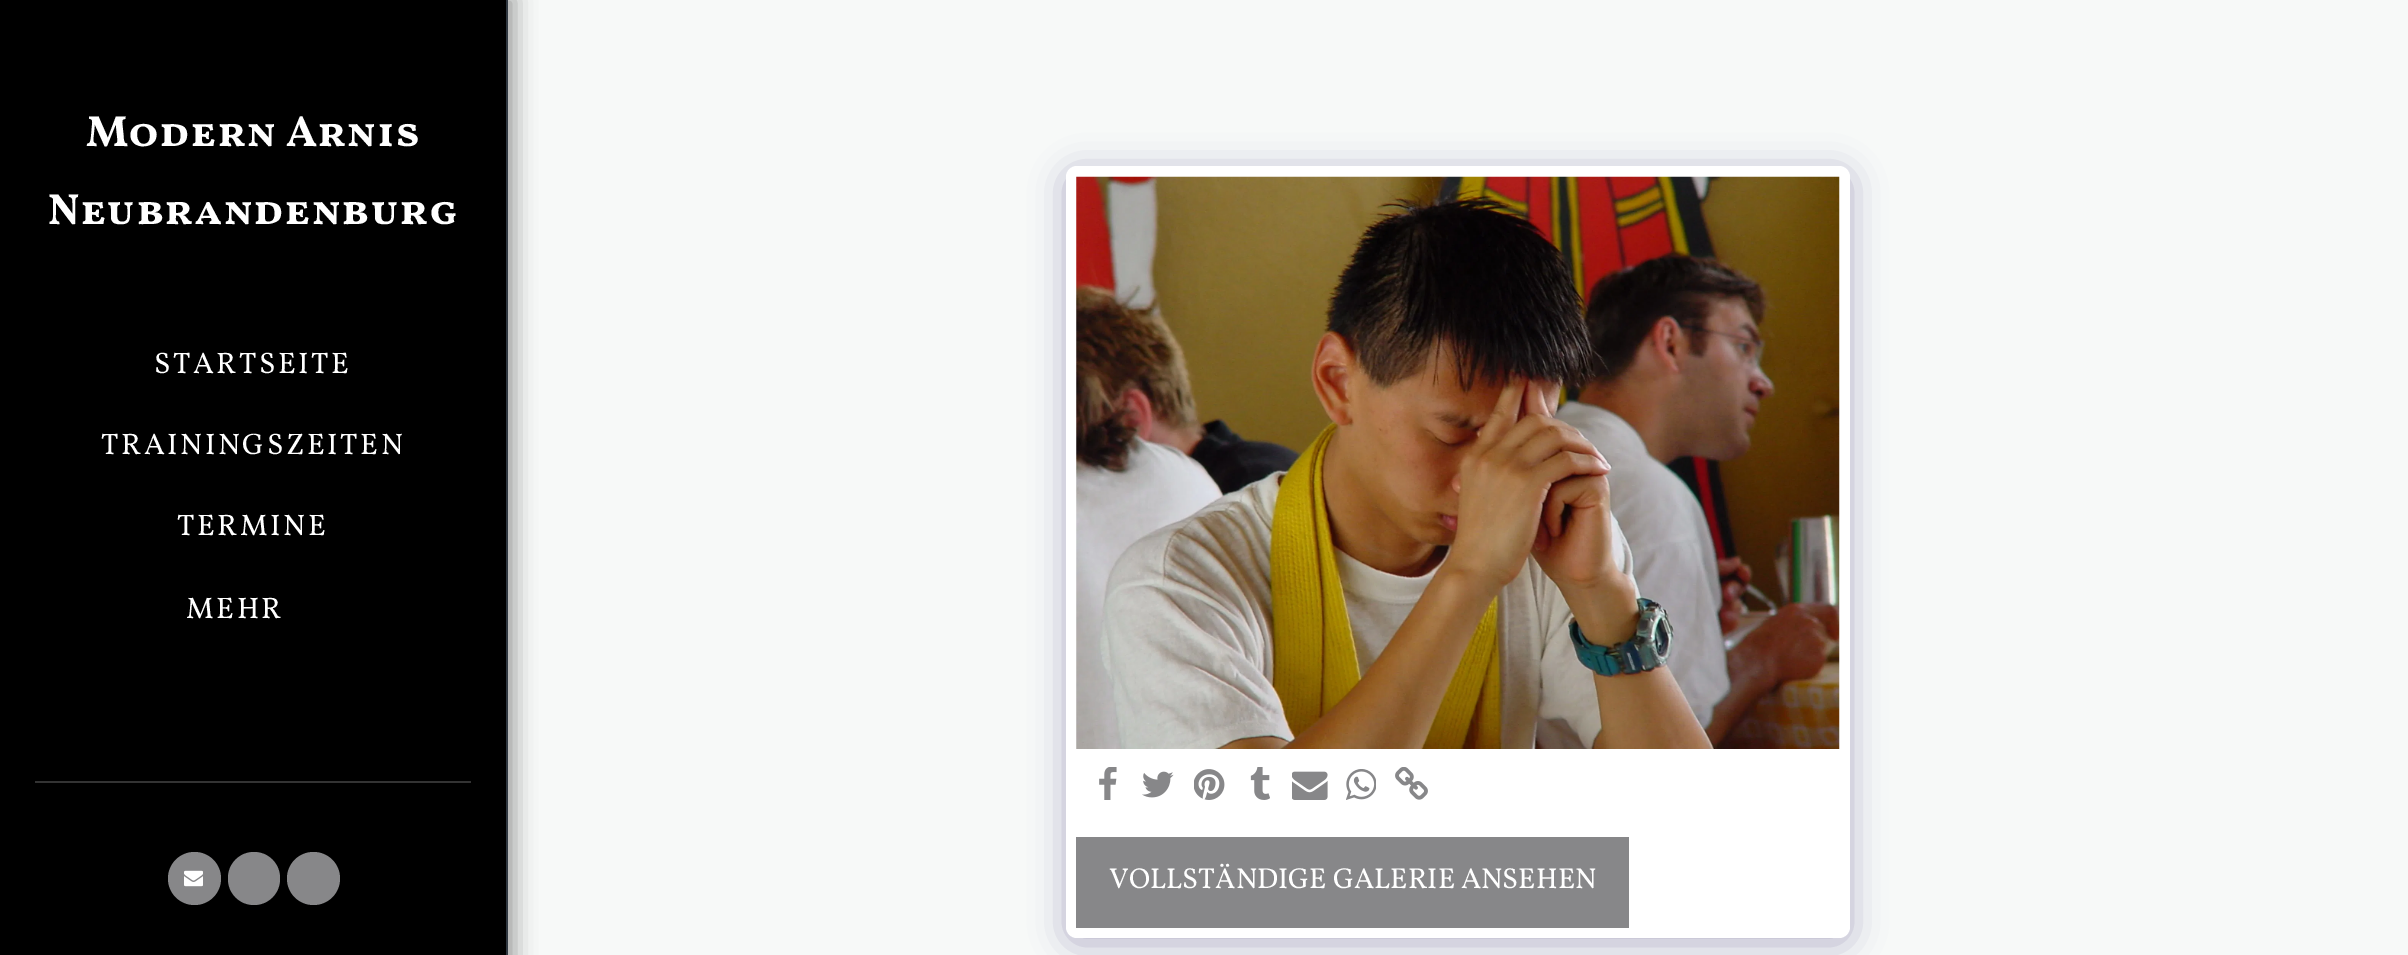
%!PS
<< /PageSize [2408 955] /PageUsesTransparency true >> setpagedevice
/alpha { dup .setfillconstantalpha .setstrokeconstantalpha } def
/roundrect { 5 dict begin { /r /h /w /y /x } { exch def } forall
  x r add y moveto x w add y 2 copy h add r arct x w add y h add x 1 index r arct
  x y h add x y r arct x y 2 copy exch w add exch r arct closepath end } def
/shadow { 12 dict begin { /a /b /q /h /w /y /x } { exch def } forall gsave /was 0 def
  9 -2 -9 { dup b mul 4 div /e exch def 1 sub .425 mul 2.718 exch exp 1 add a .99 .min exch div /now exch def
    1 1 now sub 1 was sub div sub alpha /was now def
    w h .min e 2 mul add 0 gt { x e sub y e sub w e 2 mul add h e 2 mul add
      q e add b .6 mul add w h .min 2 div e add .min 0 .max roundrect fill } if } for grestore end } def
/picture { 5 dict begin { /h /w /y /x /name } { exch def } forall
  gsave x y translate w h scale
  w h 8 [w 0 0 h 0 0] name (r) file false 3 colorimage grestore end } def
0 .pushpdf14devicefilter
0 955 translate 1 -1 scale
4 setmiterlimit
0.969 0.976 0.973 setrgbcolor
0 0 2408 955 rectfill
0 setgray
0 -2 515 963 0 10.5 0.35 shadow
0 0 506 955 rectfill
0.188 0.22 0.255 setrgbcolor
506 0 2 955 rectfill
/VollkornSC-Bold [43.75 0 0 -43.75 0 0] selectfont
1 setgray
86 146 moveto (Modern Arnis) show
48 224 moveto (Neubrandenburg) show
/VollkornSC-Regular [29.75 0 0 -29.75 0 0] selectfont
154 373 moveto 2.5 0 (STARTSEITE) ashow
101 454 moveto 2.5 0 (TRAININGSZEITEN) ashow
177 535 moveto 2.5 0 (TERMINE) ashow
186 618 moveto 2.5 0 (MEHR) ashow
0.2 setgray
35 781 436 2 rectfill
0.529 0.529 0.537 setrgbcolor
newpath 194.5 878.5 26.5 0 360 arc closepath fill
(img1.rgb) 184 870 19 17 picture
228 852 52 53 26 roundrect fill
newpath 313.5 878.5 26.5 0 360 arc closepath fill
0.302 0.247 0.478 setrgbcolor
1066 172 784 771 11 17.5 0.4 shadow
1 setgray
1066 166 784 772 11 roundrect fill
(img2.rgb) 1076 176 764 573 picture
(img3.rgb) 1099 767 18 33 picture
(img4.rgb) 1142 771 32 27 picture
(img5.rgb) 1194 769 31 31 picture
(img6.rgb) 1250 767 20 33 picture
(img7.rgb) 1292 771 36 29 picture
(img8.rgb) 1346 769 30 31 picture
(img9.rgb) 1395 767 33 33 picture
0.529 0.529 0.537 setrgbcolor
1076 837 553 91 rectfill
/VollkornSC-Regular [28.9 0 0 -28.9 0 0] selectfont
1 setgray
1109 888 moveto (VOLLSTÄNDIGE GALERIE ANSEHEN) show
.poppdf14devicefilter showpage
